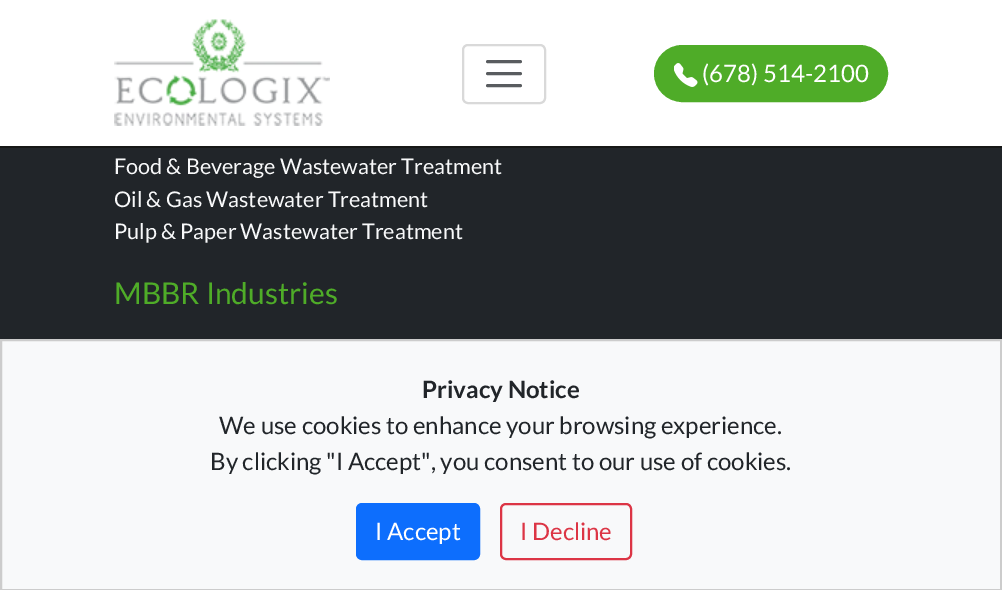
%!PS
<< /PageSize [1002 590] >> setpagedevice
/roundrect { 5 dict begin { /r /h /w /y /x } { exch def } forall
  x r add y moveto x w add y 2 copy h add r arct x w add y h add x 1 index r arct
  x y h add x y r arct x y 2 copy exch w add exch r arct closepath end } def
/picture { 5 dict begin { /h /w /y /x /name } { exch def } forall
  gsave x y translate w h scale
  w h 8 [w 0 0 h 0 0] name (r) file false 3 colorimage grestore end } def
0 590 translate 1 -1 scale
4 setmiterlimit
0.129 0.145 0.161 setrgbcolor
0 0 1002 590 rectfill
1 setgray
0 0 1002 146 rectfill
0.09 0.094 0.09 setrgbcolor
0 146 1002 2 rectfill
(img1.rgb) 114 19 216 107 picture
0.851 setgray
2 setlinewidth
463 45 82 58 5 roundrect stroke
0.349 0.361 0.373 setrgbcolor
3 setlinewidth
1 setlinecap
newpath 487.5 61.5 moveto 520.5 61.5 lineto 487.5 73.5 moveto 520.5 73.5 lineto 487.5 85.5 moveto 520.5 85.5 lineto stroke
0.31 0.675 0.157 setrgbcolor
655 46 232 55 27.5 roundrect gsave fill grestore
2 setlinewidth
0 setlinecap
stroke
(img2.rgb) 674 63 24 24 picture
/Lato-Regular [24 0 0 -24 0 0] selectfont
1 setgray
702 82 moveto (\(678\) 514-2100) show
/Lato-Regular [21.6 0 0 -21.6 0 0] selectfont
0.973 0.976 0.98 setrgbcolor
114 174 moveto (Food & Beverage Wastewater Treatment) show
114 207 moveto (Oil & Gas Wastewater Treatment) show
114 239 moveto (Pulp & Paper Wastewater Treatment) show
/Lato-Regular [30 0 0 -30 0 0] selectfont
0.31 0.675 0.157 setrgbcolor
114 304 moveto (MBBR Industries) show
0.973 0.976 0.98 setrgbcolor
newpath 1 340 moveto 1001 340 lineto 1001 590 lineto 1 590 lineto closepath gsave fill grestore
0.8 setgray
stroke
/Lato-Bold [24 0 0 -24 0 0] selectfont
0.129 0.145 0.161 setrgbcolor
422 398 moveto (Privacy Notice) show
/Lato-Regular [24 0 0 -24 0 0] selectfont
219 434 moveto (We use cookies to enhance your browsing experience.) show
210 470 moveto (By clicking "I Accept", you consent to our use of cookies.) show
0.051 0.431 0.992 setrgbcolor
357 504 122 55 5 roundrect gsave fill grestore
stroke
1 setgray
375 540 moveto (I Accept) show
0.863 0.208 0.271 setrgbcolor
501 504 130 55 5 roundrect stroke
520 540 moveto (I Decline) show
showpage
